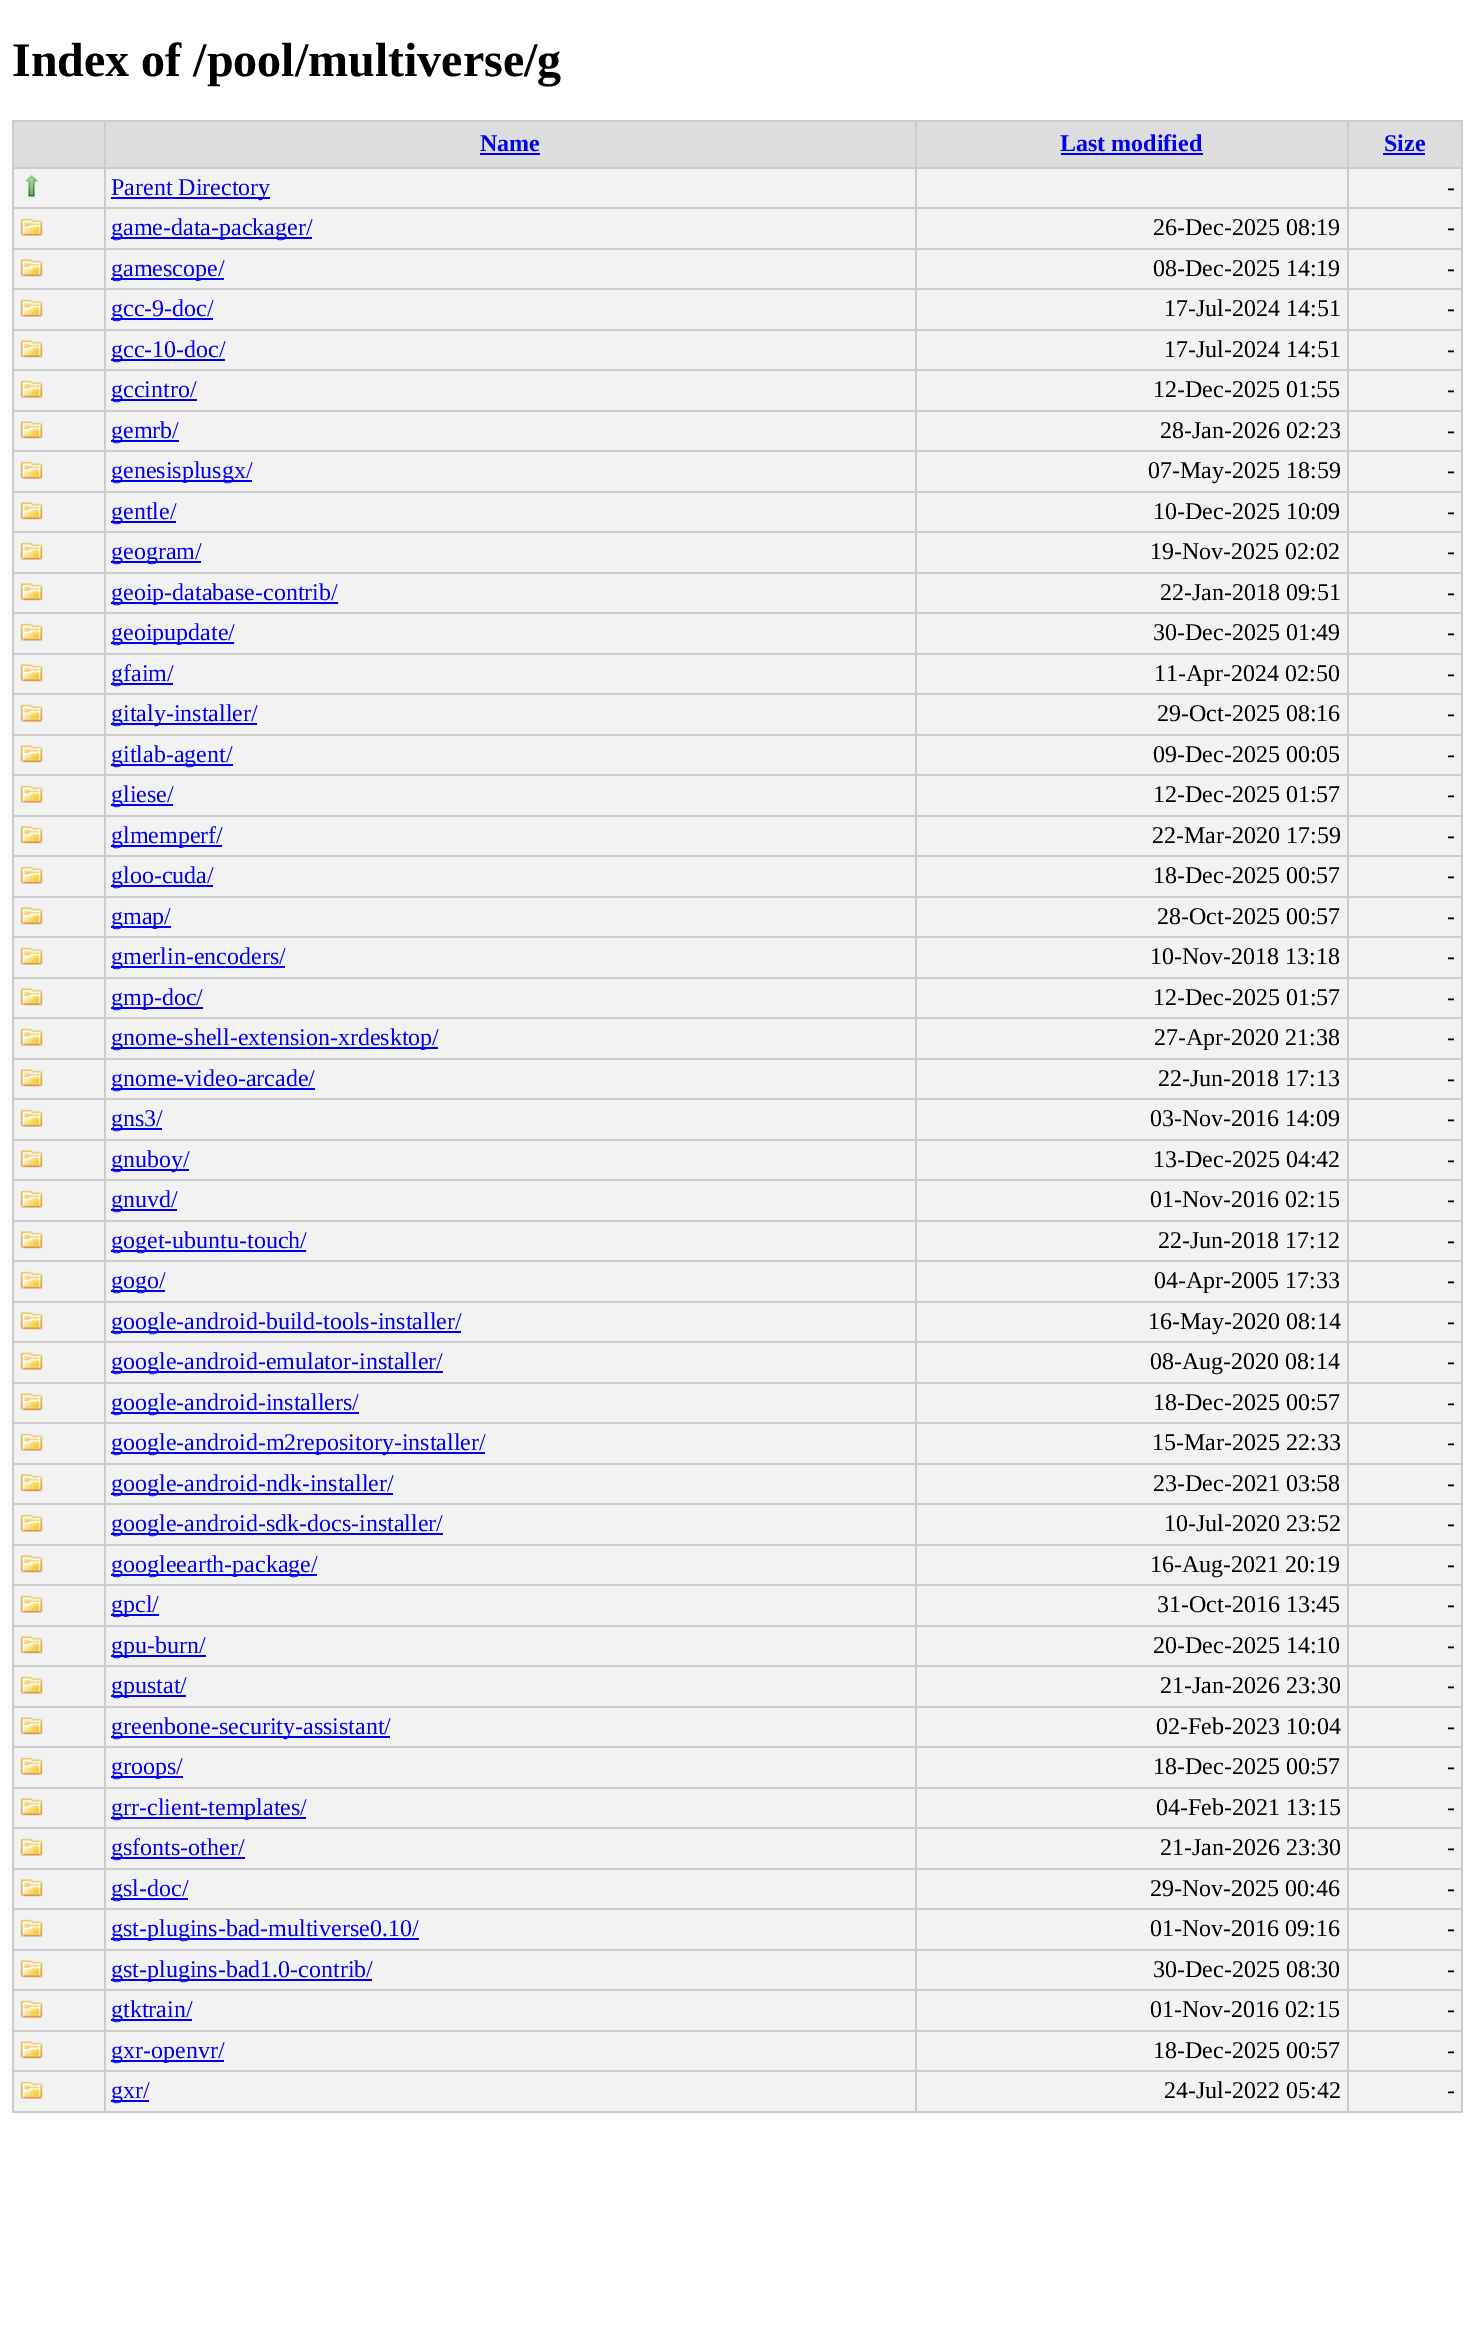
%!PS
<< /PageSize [1474 2333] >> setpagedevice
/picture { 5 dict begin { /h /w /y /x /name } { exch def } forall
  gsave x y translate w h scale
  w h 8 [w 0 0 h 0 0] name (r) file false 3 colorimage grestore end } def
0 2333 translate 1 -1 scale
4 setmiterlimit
1 setgray
0 0 1474 2333 rectfill
/LiberationSerif-Bold [48 0 0 -48 0 0] selectfont
0 setgray
12 76 moveto (Index of /pool/multiverse/g) show
0.867 setgray
14 122 90 45 rectfill
0.8 setgray
1347 120 116 2 rectfill
1347 167 116 2 rectfill
0.949 setgray
14 169 1447 38 rectfill
0.8 setgray
1347 207 116 2 rectfill
0.949 setgray
14 209 1447 39 rectfill
0.8 setgray
1347 248 116 2 rectfill
0.949 setgray
14 250 1447 38 rectfill
0.8 setgray
1347 288 116 2 rectfill
0.949 setgray
14 290 1447 39 rectfill
0.8 setgray
1347 329 116 2 rectfill
0.949 setgray
14 331 1447 38 rectfill
0.8 setgray
1347 369 116 2 rectfill
0.949 setgray
14 371 1447 39 rectfill
0.8 setgray
1347 410 116 2 rectfill
0.949 setgray
14 412 1447 38 rectfill
0.8 setgray
1347 450 116 2 rectfill
0.949 setgray
14 452 1447 39 rectfill
0.8 setgray
1347 491 116 2 rectfill
0.949 setgray
14 493 1447 38 rectfill
0.8 setgray
1347 531 116 2 rectfill
0.949 setgray
14 533 1447 39 rectfill
0.8 setgray
1347 572 116 2 rectfill
0.949 setgray
14 574 1447 38 rectfill
0.8 setgray
1347 612 116 2 rectfill
0.949 setgray
14 614 1447 39 rectfill
0.8 setgray
1347 653 116 2 rectfill
0.949 setgray
14 655 1447 38 rectfill
0.8 setgray
1347 693 116 2 rectfill
0.949 setgray
14 695 1447 39 rectfill
0.8 setgray
1347 734 116 2 rectfill
0.949 setgray
14 736 1447 38 rectfill
0.8 setgray
1347 774 116 2 rectfill
0.949 setgray
14 776 1447 39 rectfill
0.8 setgray
1347 815 116 2 rectfill
0.949 setgray
14 817 1447 38 rectfill
0.8 setgray
1347 855 116 2 rectfill
0.949 setgray
14 857 1447 39 rectfill
0.8 setgray
1347 896 116 2 rectfill
0.949 setgray
14 898 1447 38 rectfill
0.8 setgray
1347 936 116 2 rectfill
0.949 setgray
14 938 1447 39 rectfill
0.8 setgray
1347 977 116 2 rectfill
0.949 setgray
14 979 1447 38 rectfill
0.8 setgray
1347 1017 116 2 rectfill
0.949 setgray
14 1019 1447 39 rectfill
0.8 setgray
1347 1058 116 2 rectfill
0.949 setgray
14 1060 1447 38 rectfill
0.8 setgray
1347 1098 116 2 rectfill
0.949 setgray
14 1100 1447 39 rectfill
0.8 setgray
1347 1139 116 2 rectfill
0.949 setgray
14 1141 1447 38 rectfill
0.8 setgray
1347 1179 116 2 rectfill
0.949 setgray
14 1181 1447 39 rectfill
0.8 setgray
1347 1220 116 2 rectfill
0.949 setgray
14 1222 1447 38 rectfill
0.8 setgray
1347 1260 116 2 rectfill
0.949 setgray
14 1262 1447 39 rectfill
0.8 setgray
1347 1301 116 2 rectfill
0.949 setgray
14 1303 1447 38 rectfill
0.8 setgray
1347 1341 116 2 rectfill
0.949 setgray
14 1343 1447 39 rectfill
0.8 setgray
1347 1382 116 2 rectfill
0.949 setgray
14 1384 1447 38 rectfill
0.8 setgray
1347 1422 116 2 rectfill
0.949 setgray
14 1424 1447 39 rectfill
0.8 setgray
1347 1463 116 2 rectfill
0.949 setgray
14 1465 1447 38 rectfill
0.8 setgray
1347 1503 116 2 rectfill
0.949 setgray
14 1505 1447 39 rectfill
0.8 setgray
1347 1544 116 2 rectfill
0.949 setgray
14 1546 1447 38 rectfill
0.8 setgray
1347 1584 116 2 rectfill
0.949 setgray
14 1586 1447 39 rectfill
0.8 setgray
1347 1625 116 2 rectfill
0.949 setgray
14 1627 1447 38 rectfill
0.8 setgray
1347 1665 116 2 rectfill
0.949 setgray
14 1667 1447 39 rectfill
0.8 setgray
1347 1706 116 2 rectfill
0.949 setgray
14 1708 1447 38 rectfill
0.8 setgray
1347 1746 116 2 rectfill
0.949 setgray
14 1748 1447 39 rectfill
0.8 setgray
1347 1787 116 2 rectfill
0.949 setgray
14 1789 1447 38 rectfill
0.8 setgray
1347 1827 116 2 rectfill
0.949 setgray
14 1829 1447 39 rectfill
0.8 setgray
1347 1868 116 2 rectfill
0.949 setgray
14 1870 1447 38 rectfill
0.8 setgray
1347 1908 116 2 rectfill
0.949 setgray
14 1910 1447 39 rectfill
0.8 setgray
1347 1949 116 2 rectfill
0.949 setgray
14 1951 1447 38 rectfill
0.8 setgray
1347 1989 116 2 rectfill
0.949 setgray
14 1991 1447 39 rectfill
0.8 setgray
1347 2030 116 2 rectfill
0.949 setgray
14 2032 1447 38 rectfill
0.8 setgray
1347 2070 116 2 rectfill
0.949 setgray
14 2072 1447 39 rectfill
0.8 setgray
1461 2070 2 42 rectfill
1347 2111 116 2 rectfill
1347 2070 2 42 rectfill
915 2070 434 2 rectfill
1347 2030 2 42 rectfill
915 2030 434 2 rectfill
1347 1989 2 42 rectfill
915 1989 434 2 rectfill
1347 1949 2 42 rectfill
915 1949 434 2 rectfill
1347 1908 2 42 rectfill
915 1908 434 2 rectfill
1347 1868 2 42 rectfill
915 1868 434 2 rectfill
1347 1827 2 42 rectfill
915 1827 434 2 rectfill
1347 1787 2 42 rectfill
915 1787 434 2 rectfill
1347 1746 2 42 rectfill
915 1746 434 2 rectfill
1347 1706 2 42 rectfill
915 1706 434 2 rectfill
1347 1665 2 42 rectfill
915 1665 434 2 rectfill
1347 1625 2 42 rectfill
915 1625 434 2 rectfill
1347 1584 2 42 rectfill
915 1584 434 2 rectfill
1347 1544 2 42 rectfill
915 1544 434 2 rectfill
1347 1503 2 42 rectfill
915 1503 434 2 rectfill
1347 1463 2 42 rectfill
915 1463 434 2 rectfill
1347 1422 2 42 rectfill
915 1422 434 2 rectfill
1347 1382 2 42 rectfill
915 1382 434 2 rectfill
1347 1341 2 42 rectfill
915 1341 434 2 rectfill
1347 1301 2 42 rectfill
915 1301 434 2 rectfill
1347 1260 2 42 rectfill
915 1260 434 2 rectfill
1347 1220 2 42 rectfill
915 1220 434 2 rectfill
1347 1179 2 42 rectfill
915 1179 434 2 rectfill
1347 1139 2 42 rectfill
915 1139 434 2 rectfill
1347 1098 2 42 rectfill
915 1098 434 2 rectfill
1347 1058 2 42 rectfill
915 1058 434 2 rectfill
1347 1017 2 42 rectfill
915 1017 434 2 rectfill
1347 977 2 42 rectfill
915 977 434 2 rectfill
1347 936 2 42 rectfill
915 936 434 2 rectfill
1347 896 2 42 rectfill
915 896 434 2 rectfill
1347 855 2 42 rectfill
915 855 434 2 rectfill
1347 815 2 42 rectfill
915 815 434 2 rectfill
1347 774 2 42 rectfill
915 774 434 2 rectfill
1347 734 2 42 rectfill
915 734 434 2 rectfill
1347 693 2 42 rectfill
915 693 434 2 rectfill
1347 653 2 42 rectfill
915 653 434 2 rectfill
1347 612 2 42 rectfill
915 612 434 2 rectfill
1347 572 2 42 rectfill
915 572 434 2 rectfill
1347 531 2 42 rectfill
915 531 434 2 rectfill
1347 491 2 42 rectfill
915 491 434 2 rectfill
1347 450 2 42 rectfill
915 450 434 2 rectfill
1347 410 2 42 rectfill
915 410 434 2 rectfill
1347 369 2 42 rectfill
915 369 434 2 rectfill
1347 329 2 42 rectfill
915 329 434 2 rectfill
1347 288 2 42 rectfill
915 288 434 2 rectfill
1347 248 2 42 rectfill
915 248 434 2 rectfill
1347 207 2 42 rectfill
915 207 434 2 rectfill
1347 167 2 42 rectfill
915 167 434 2 rectfill
1347 120 2 48 rectfill
915 120 434 2 rectfill
915 2111 434 2 rectfill
915 2070 2 42 rectfill
104 2070 813 2 rectfill
915 2030 2 42 rectfill
104 2030 813 2 rectfill
915 1989 2 42 rectfill
104 1989 813 2 rectfill
915 1949 2 42 rectfill
104 1949 813 2 rectfill
915 1908 2 42 rectfill
104 1908 813 2 rectfill
915 1868 2 42 rectfill
104 1868 813 2 rectfill
915 1827 2 42 rectfill
104 1827 813 2 rectfill
915 1787 2 42 rectfill
104 1787 813 2 rectfill
915 1746 2 42 rectfill
104 1746 813 2 rectfill
915 1706 2 42 rectfill
104 1706 813 2 rectfill
915 1665 2 42 rectfill
104 1665 813 2 rectfill
915 1625 2 42 rectfill
104 1625 813 2 rectfill
915 1584 2 42 rectfill
104 1584 813 2 rectfill
915 1544 2 42 rectfill
104 1544 813 2 rectfill
915 1503 2 42 rectfill
104 1503 813 2 rectfill
915 1463 2 42 rectfill
104 1463 813 2 rectfill
915 1422 2 42 rectfill
104 1422 813 2 rectfill
915 1382 2 42 rectfill
104 1382 813 2 rectfill
915 1341 2 42 rectfill
104 1341 813 2 rectfill
915 1301 2 42 rectfill
104 1301 813 2 rectfill
915 1260 2 42 rectfill
104 1260 813 2 rectfill
915 1220 2 42 rectfill
104 1220 813 2 rectfill
915 1179 2 42 rectfill
104 1179 813 2 rectfill
915 1139 2 42 rectfill
104 1139 813 2 rectfill
915 1098 2 42 rectfill
104 1098 813 2 rectfill
915 1058 2 42 rectfill
104 1058 813 2 rectfill
915 1017 2 42 rectfill
104 1017 813 2 rectfill
915 977 2 42 rectfill
104 977 813 2 rectfill
915 936 2 42 rectfill
104 936 813 2 rectfill
915 896 2 42 rectfill
104 896 813 2 rectfill
915 855 2 42 rectfill
104 855 813 2 rectfill
915 815 2 42 rectfill
104 815 813 2 rectfill
915 774 2 42 rectfill
104 774 813 2 rectfill
915 734 2 42 rectfill
104 734 813 2 rectfill
915 693 2 42 rectfill
104 693 813 2 rectfill
915 653 2 42 rectfill
104 653 813 2 rectfill
915 612 2 42 rectfill
104 612 813 2 rectfill
915 572 2 42 rectfill
104 572 813 2 rectfill
915 531 2 42 rectfill
104 531 813 2 rectfill
915 491 2 42 rectfill
104 491 813 2 rectfill
915 450 2 42 rectfill
104 450 813 2 rectfill
915 410 2 42 rectfill
104 410 813 2 rectfill
915 369 2 42 rectfill
104 369 813 2 rectfill
915 329 2 42 rectfill
104 329 813 2 rectfill
915 288 2 42 rectfill
104 288 813 2 rectfill
915 248 2 42 rectfill
104 248 813 2 rectfill
915 207 2 42 rectfill
104 207 813 2 rectfill
915 167 2 42 rectfill
104 167 813 2 rectfill
915 120 2 48 rectfill
104 120 813 2 rectfill
104 2111 813 2 rectfill
104 2070 2 42 rectfill
12 2070 93 2 rectfill
104 2030 2 42 rectfill
12 2030 93 2 rectfill
104 1989 2 42 rectfill
12 1989 93 2 rectfill
104 1949 2 42 rectfill
12 1949 93 2 rectfill
104 1908 2 42 rectfill
12 1908 93 2 rectfill
104 1868 2 42 rectfill
12 1868 93 2 rectfill
104 1827 2 42 rectfill
12 1827 93 2 rectfill
104 1787 2 42 rectfill
12 1787 93 2 rectfill
104 1746 2 42 rectfill
12 1746 93 2 rectfill
104 1706 2 42 rectfill
12 1706 93 2 rectfill
104 1665 2 42 rectfill
12 1665 93 2 rectfill
104 1625 2 42 rectfill
12 1625 93 2 rectfill
104 1584 2 42 rectfill
12 1584 93 2 rectfill
104 1544 2 42 rectfill
12 1544 93 2 rectfill
104 1503 2 42 rectfill
12 1503 93 2 rectfill
104 1463 2 42 rectfill
12 1463 93 2 rectfill
104 1422 2 42 rectfill
12 1422 93 2 rectfill
104 1382 2 42 rectfill
12 1382 93 2 rectfill
104 1341 2 42 rectfill
12 1341 93 2 rectfill
104 1301 2 42 rectfill
12 1301 93 2 rectfill
104 1260 2 42 rectfill
12 1260 93 2 rectfill
104 1220 2 42 rectfill
12 1220 93 2 rectfill
104 1179 2 42 rectfill
12 1179 93 2 rectfill
104 1139 2 42 rectfill
12 1139 93 2 rectfill
104 1098 2 42 rectfill
12 1098 93 2 rectfill
104 1058 2 42 rectfill
12 1058 93 2 rectfill
104 1017 2 42 rectfill
12 1017 93 2 rectfill
104 977 2 42 rectfill
12 977 93 2 rectfill
104 936 2 42 rectfill
12 936 93 2 rectfill
104 896 2 42 rectfill
12 896 93 2 rectfill
104 855 2 42 rectfill
12 855 93 2 rectfill
104 815 2 42 rectfill
12 815 93 2 rectfill
104 774 2 42 rectfill
12 774 93 2 rectfill
104 734 2 42 rectfill
12 734 93 2 rectfill
104 693 2 42 rectfill
12 693 93 2 rectfill
104 653 2 42 rectfill
12 653 93 2 rectfill
104 612 2 42 rectfill
12 612 93 2 rectfill
104 572 2 42 rectfill
12 572 93 2 rectfill
104 531 2 42 rectfill
12 531 93 2 rectfill
104 491 2 42 rectfill
12 491 93 2 rectfill
104 450 2 42 rectfill
12 450 93 2 rectfill
104 410 2 42 rectfill
12 410 93 2 rectfill
104 369 2 42 rectfill
12 369 93 2 rectfill
104 329 2 42 rectfill
12 329 93 2 rectfill
104 288 2 42 rectfill
12 288 93 2 rectfill
104 248 2 42 rectfill
12 248 93 2 rectfill
104 207 2 42 rectfill
12 207 93 2 rectfill
104 167 2 42 rectfill
12 167 93 2 rectfill
104 120 2 48 rectfill
12 120 93 2 rectfill
12 2111 93 2 rectfill
12 2070 2 42 rectfill
12 2030 2 42 rectfill
12 1989 2 42 rectfill
12 1949 2 42 rectfill
12 1908 2 42 rectfill
12 1868 2 42 rectfill
12 1827 2 42 rectfill
12 1787 2 42 rectfill
12 1746 2 42 rectfill
12 1706 2 42 rectfill
12 1665 2 42 rectfill
12 1625 2 42 rectfill
12 1584 2 42 rectfill
12 1544 2 42 rectfill
12 1503 2 42 rectfill
12 1463 2 42 rectfill
12 1422 2 42 rectfill
12 1382 2 42 rectfill
12 1341 2 42 rectfill
12 1301 2 42 rectfill
12 1260 2 42 rectfill
12 1220 2 42 rectfill
12 1179 2 42 rectfill
12 1139 2 42 rectfill
12 1098 2 42 rectfill
12 1058 2 42 rectfill
12 1017 2 42 rectfill
12 977 2 42 rectfill
12 936 2 42 rectfill
12 896 2 42 rectfill
12 855 2 42 rectfill
12 815 2 42 rectfill
12 774 2 42 rectfill
12 734 2 42 rectfill
12 693 2 42 rectfill
12 653 2 42 rectfill
12 612 2 42 rectfill
12 572 2 42 rectfill
12 531 2 42 rectfill
12 491 2 42 rectfill
12 450 2 42 rectfill
12 410 2 42 rectfill
12 369 2 42 rectfill
12 329 2 42 rectfill
12 288 2 42 rectfill
12 248 2 42 rectfill
12 207 2 42 rectfill
12 167 2 42 rectfill
12 120 2 48 rectfill
0.867 setgray
106 122 809 45 rectfill
/LiberationSerif-Bold [24 0 0 -24 0 0] selectfont
0 0 0.933 setrgbcolor
480 151 moveto (Name) show
480 153 60 2 rectfill
0.867 setgray
917 122 430 45 rectfill
0 0 0.933 setrgbcolor
1060 151 moveto (Last modified) show
1061 153 142 2 rectfill
0.867 setgray
1349 122 112 45 rectfill
0.8 setgray
1461 2030 2 42 rectfill
1461 1989 2 42 rectfill
1461 1949 2 42 rectfill
1461 1908 2 42 rectfill
1461 1868 2 42 rectfill
1461 1827 2 42 rectfill
1461 1787 2 42 rectfill
1461 1746 2 42 rectfill
1461 1706 2 42 rectfill
1461 1665 2 42 rectfill
1461 1625 2 42 rectfill
1461 1584 2 42 rectfill
1461 1544 2 42 rectfill
1461 1503 2 42 rectfill
1461 1463 2 42 rectfill
1461 1422 2 42 rectfill
1461 1382 2 42 rectfill
1461 1341 2 42 rectfill
1461 1301 2 42 rectfill
1461 1260 2 42 rectfill
1461 1220 2 42 rectfill
1461 1179 2 42 rectfill
1461 1139 2 42 rectfill
1461 1098 2 42 rectfill
1461 1058 2 42 rectfill
1461 1017 2 42 rectfill
1461 977 2 42 rectfill
1461 936 2 42 rectfill
1461 896 2 42 rectfill
1461 855 2 42 rectfill
1461 815 2 42 rectfill
1461 774 2 42 rectfill
1461 734 2 42 rectfill
1461 693 2 42 rectfill
1461 653 2 42 rectfill
1461 612 2 42 rectfill
1461 572 2 42 rectfill
1461 531 2 42 rectfill
1461 491 2 42 rectfill
1461 450 2 42 rectfill
1461 410 2 42 rectfill
1461 369 2 42 rectfill
1461 329 2 42 rectfill
1461 288 2 42 rectfill
1461 248 2 42 rectfill
1461 207 2 42 rectfill
1461 167 2 42 rectfill
1461 120 2 48 rectfill
0 0 0.933 setrgbcolor
1384 151 moveto (Size) show
1383 153 42 2 rectfill
(img1.rgb) 25 175 13 22 picture
111 197 159 2 rectfill
/LiberationSerif-Regular [24 0 0 -24 0 0] selectfont
111 195 moveto (Parent Directory) show
0 setgray
1447 195 moveto (-) show
(img2.rgb) 20 218 23 18 picture
0 0 0.933 setrgbcolor
111 237 201 2 rectfill
111 235 moveto (game-data-packager/) show
0 setgray
1153 235 moveto (26-Dec-2025 08:19) show
1447 235 moveto (-) show
(img3.rgb) 20 259 23 18 picture
0 0 0.933 setrgbcolor
111 278 113 2 rectfill
111 276 moveto (gamescope/) show
0 setgray
1153 276 moveto (08-Dec-2025 14:19) show
1447 276 moveto (-) show
(img2.rgb) 20 299 23 18 picture
0 0 0.933 setrgbcolor
111 318 102 2 rectfill
111 316 moveto (gcc-9-doc/) show
0 setgray
1164 316 moveto (17-Jul-2024 14:51) show
1447 316 moveto (-) show
(img3.rgb) 20 340 23 18 picture
0 0 0.933 setrgbcolor
111 359 114 2 rectfill
111 357 moveto (gcc-10-doc/) show
0 setgray
1164 357 moveto (17-Jul-2024 14:51) show
1447 357 moveto (-) show
(img2.rgb) 20 380 23 18 picture
0 0 0.933 setrgbcolor
111 399 86 2 rectfill
111 397 moveto (gccintro/) show
0 setgray
1153 397 moveto (12-Dec-2025 01:55) show
1447 397 moveto (-) show
(img3.rgb) 20 421 23 18 picture
0 0 0.933 setrgbcolor
111 440 68 2 rectfill
111 438 moveto (gemrb/) show
0 setgray
1160 438 moveto (28-Jan-2026 02:23) show
1447 438 moveto (-) show
(img2.rgb) 20 461 23 18 picture
0 0 0.933 setrgbcolor
111 480 141 2 rectfill
111 478 moveto (genesisplusgx/) show
0 setgray
1148 478 moveto (07-May-2025 18:59) show
1447 478 moveto (-) show
(img3.rgb) 20 502 23 18 picture
0 0 0.933 setrgbcolor
111 521 65 2 rectfill
111 519 moveto (gentle/) show
0 setgray
1153 519 moveto (10-Dec-2025 10:09) show
1447 519 moveto (-) show
(img2.rgb) 20 542 23 18 picture
0 0 0.933 setrgbcolor
111 561 90 2 rectfill
111 559 moveto (geogram/) show
0 setgray
1150 559 moveto (19-Nov-2025 02:02) show
1447 559 moveto (-) show
(img3.rgb) 20 583 23 18 picture
0 0 0.933 setrgbcolor
111 602 227 2 rectfill
111 600 moveto (geoip-database-contrib/) show
0 setgray
1160 600 moveto (22-Jan-2018 09:51) show
1447 600 moveto (-) show
(img2.rgb) 20 623 23 18 picture
0 0 0.933 setrgbcolor
111 642 123 2 rectfill
111 640 moveto (geoipupdate/) show
0 setgray
1153 640 moveto (30-Dec-2025 01:49) show
1447 640 moveto (-) show
(img3.rgb) 20 664 23 18 picture
0 0 0.933 setrgbcolor
111 683 62 2 rectfill
111 681 moveto (gfaim/) show
0 setgray
1154 681 moveto (11-Apr-2024 02:50) show
1447 681 moveto (-) show
(img2.rgb) 20 704 23 18 picture
0 0 0.933 setrgbcolor
111 723 146 2 rectfill
111 721 moveto (gitaly-installer/) show
0 setgray
1157 721 moveto (29-Oct-2025 08:16) show
1447 721 moveto (-) show
(img3.rgb) 20 745 23 18 picture
0 0 0.933 setrgbcolor
111 764 122 2 rectfill
111 762 moveto (gitlab-agent/) show
0 setgray
1153 762 moveto (09-Dec-2025 00:05) show
1447 762 moveto (-) show
(img2.rgb) 20 785 23 18 picture
0 0 0.933 setrgbcolor
111 804 62 2 rectfill
111 802 moveto (gliese/) show
0 setgray
1153 802 moveto (12-Dec-2025 01:57) show
1447 802 moveto (-) show
(img3.rgb) 20 826 23 18 picture
0 0 0.933 setrgbcolor
111 845 111 2 rectfill
111 843 moveto (glmemperf/) show
0 setgray
1152 843 moveto (22-Mar-2020 17:59) show
1447 843 moveto (-) show
(img2.rgb) 20 866 23 18 picture
0 0 0.933 setrgbcolor
111 885 102 2 rectfill
111 883 moveto (gloo-cuda/) show
0 setgray
1153 883 moveto (18-Dec-2025 00:57) show
1447 883 moveto (-) show
(img3.rgb) 20 907 23 18 picture
0 0 0.933 setrgbcolor
111 926 60 2 rectfill
111 924 moveto (gmap/) show
0 setgray
1157 924 moveto (28-Oct-2025 00:57) show
1447 924 moveto (-) show
(img2.rgb) 20 947 23 18 picture
0 0 0.933 setrgbcolor
111 966 174 2 rectfill
111 964 moveto (gmerlin-encoders/) show
0 setgray
1150 964 moveto (10-Nov-2018 13:18) show
1447 964 moveto (-) show
(img3.rgb) 20 988 23 18 picture
0 0 0.933 setrgbcolor
111 1007 92 2 rectfill
111 1005 moveto (gmp-doc/) show
0 setgray
1153 1005 moveto (12-Dec-2025 01:57) show
1447 1005 moveto (-) show
(img2.rgb) 20 1028 23 18 picture
0 0 0.933 setrgbcolor
111 1047 327 2 rectfill
111 1045 moveto (gnome-shell-extension-xrdesktop/) show
0 setgray
1154 1045 moveto (27-Apr-2020 21:38) show
1447 1045 moveto (-) show
(img3.rgb) 20 1069 23 18 picture
0 0 0.933 setrgbcolor
111 1088 204 2 rectfill
111 1086 moveto (gnome-video-arcade/) show
0 setgray
1158 1086 moveto (22-Jun-2018 17:13) show
1447 1086 moveto (-) show
(img2.rgb) 20 1109 23 18 picture
0 0 0.933 setrgbcolor
111 1128 51 2 rectfill
111 1126 moveto (gns3/) show
0 setgray
1150 1126 moveto (03-Nov-2016 14:09) show
1447 1126 moveto (-) show
(img3.rgb) 20 1150 23 18 picture
0 0 0.933 setrgbcolor
111 1169 78 2 rectfill
111 1167 moveto (gnuboy/) show
0 setgray
1153 1167 moveto (13-Dec-2025 04:42) show
1447 1167 moveto (-) show
(img2.rgb) 20 1190 23 18 picture
0 0 0.933 setrgbcolor
111 1209 66 2 rectfill
111 1207 moveto (gnuvd/) show
0 setgray
1150 1207 moveto (01-Nov-2016 02:15) show
1447 1207 moveto (-) show
(img3.rgb) 20 1231 23 18 picture
0 0 0.933 setrgbcolor
111 1250 195 2 rectfill
111 1248 moveto (goget-ubuntu-touch/) show
0 setgray
1158 1248 moveto (22-Jun-2018 17:12) show
1447 1248 moveto (-) show
(img2.rgb) 20 1271 23 18 picture
0 0 0.933 setrgbcolor
111 1290 54 2 rectfill
111 1288 moveto (gogo/) show
0 setgray
1154 1288 moveto (04-Apr-2005 17:33) show
1447 1288 moveto (-) show
(img3.rgb) 20 1312 23 18 picture
0 0 0.933 setrgbcolor
111 1331 350 2 rectfill
111 1329 moveto (google-android-build-tools-installer/) show
0 setgray
1148 1329 moveto (16-May-2020 08:14) show
1447 1329 moveto (-) show
(img2.rgb) 20 1352 23 18 picture
0 0 0.933 setrgbcolor
111 1371 332 2 rectfill
111 1369 moveto (google-android-emulator-installer/) show
0 setgray
1150 1369 moveto (08-Aug-2020 08:14) show
1447 1369 moveto (-) show
(img3.rgb) 20 1393 23 18 picture
0 0 0.933 setrgbcolor
111 1412 248 2 rectfill
111 1410 moveto (google-android-installers/) show
0 setgray
1153 1410 moveto (18-Dec-2025 00:57) show
1447 1410 moveto (-) show
(img2.rgb) 20 1433 23 18 picture
0 0 0.933 setrgbcolor
111 1452 374 2 rectfill
111 1450 moveto (google-android-m2repository-installer/) show
0 setgray
1152 1450 moveto (15-Mar-2025 22:33) show
1447 1450 moveto (-) show
(img3.rgb) 20 1474 23 18 picture
0 0 0.933 setrgbcolor
111 1493 282 2 rectfill
111 1491 moveto (google-android-ndk-installer/) show
0 setgray
1153 1491 moveto (23-Dec-2021 03:58) show
1447 1491 moveto (-) show
(img2.rgb) 20 1514 23 18 picture
0 0 0.933 setrgbcolor
111 1533 332 2 rectfill
111 1531 moveto (google-android-sdk-docs-installer/) show
0 setgray
1164 1531 moveto (10-Jul-2020 23:52) show
1447 1531 moveto (-) show
(img3.rgb) 20 1555 23 18 picture
0 0 0.933 setrgbcolor
111 1574 206 2 rectfill
111 1572 moveto (googleearth-package/) show
0 setgray
1150 1572 moveto (16-Aug-2021 20:19) show
1447 1572 moveto (-) show
(img2.rgb) 20 1595 23 18 picture
0 0 0.933 setrgbcolor
111 1614 48 2 rectfill
111 1612 moveto (gpcl/) show
0 setgray
1157 1612 moveto (31-Oct-2016 13:45) show
1447 1612 moveto (-) show
(img3.rgb) 20 1636 23 18 picture
0 0 0.933 setrgbcolor
111 1655 95 2 rectfill
111 1653 moveto (gpu-burn/) show
0 setgray
1153 1653 moveto (20-Dec-2025 14:10) show
1447 1653 moveto (-) show
(img2.rgb) 20 1676 23 18 picture
0 0 0.933 setrgbcolor
111 1695 75 2 rectfill
111 1693 moveto (gpustat/) show
0 setgray
1160 1693 moveto (21-Jan-2026 23:30) show
1447 1693 moveto (-) show
(img3.rgb) 20 1717 23 18 picture
0 0 0.933 setrgbcolor
111 1736 279 2 rectfill
111 1734 moveto (greenbone-security-assistant/) show
0 setgray
1156 1734 moveto (02-Feb-2023 10:04) show
1447 1734 moveto (-) show
(img2.rgb) 20 1757 23 18 picture
0 0 0.933 setrgbcolor
111 1776 72 2 rectfill
111 1774 moveto (groops/) show
0 setgray
1153 1774 moveto (18-Dec-2025 00:57) show
1447 1774 moveto (-) show
(img3.rgb) 20 1798 23 18 picture
0 0 0.933 setrgbcolor
111 1817 195 2 rectfill
111 1815 moveto (grr-client-templates/) show
0 setgray
1156 1815 moveto (04-Feb-2021 13:15) show
1447 1815 moveto (-) show
(img2.rgb) 20 1838 23 18 picture
0 0 0.933 setrgbcolor
111 1857 134 2 rectfill
111 1855 moveto (gsfonts-other/) show
0 setgray
1160 1855 moveto (21-Jan-2026 23:30) show
1447 1855 moveto (-) show
(img3.rgb) 20 1879 23 18 picture
0 0 0.933 setrgbcolor
111 1898 77 2 rectfill
111 1896 moveto (gsl-doc/) show
0 setgray
1150 1896 moveto (29-Nov-2025 00:46) show
1447 1896 moveto (-) show
(img2.rgb) 20 1919 23 18 picture
0 0 0.933 setrgbcolor
111 1938 308 2 rectfill
111 1936 moveto (gst-plugins-bad-multiverse0.10/) show
0 setgray
1150 1936 moveto (01-Nov-2016 09:16) show
1447 1936 moveto (-) show
(img3.rgb) 20 1960 23 18 picture
0 0 0.933 setrgbcolor
111 1979 261 2 rectfill
111 1977 moveto (gst-plugins-bad1.0-contrib/) show
0 setgray
1153 1977 moveto (30-Dec-2025 08:30) show
1447 1977 moveto (-) show
(img2.rgb) 20 2000 23 18 picture
0 0 0.933 setrgbcolor
111 2019 81 2 rectfill
111 2017 moveto (gtktrain/) show
0 setgray
1150 2017 moveto (01-Nov-2016 02:15) show
1447 2017 moveto (-) show
(img3.rgb) 20 2041 23 18 picture
0 0 0.933 setrgbcolor
111 2060 113 2 rectfill
111 2058 moveto (gxr-openvr/) show
0 setgray
1153 2058 moveto (18-Dec-2025 00:57) show
1447 2058 moveto (-) show
(img2.rgb) 20 2081 23 18 picture
0 0 0.933 setrgbcolor
111 2100 38 2 rectfill
111 2098 moveto (gxr/) show
0 setgray
1164 2098 moveto (24-Jul-2022 05:42) show
1447 2098 moveto (-) show
showpage
